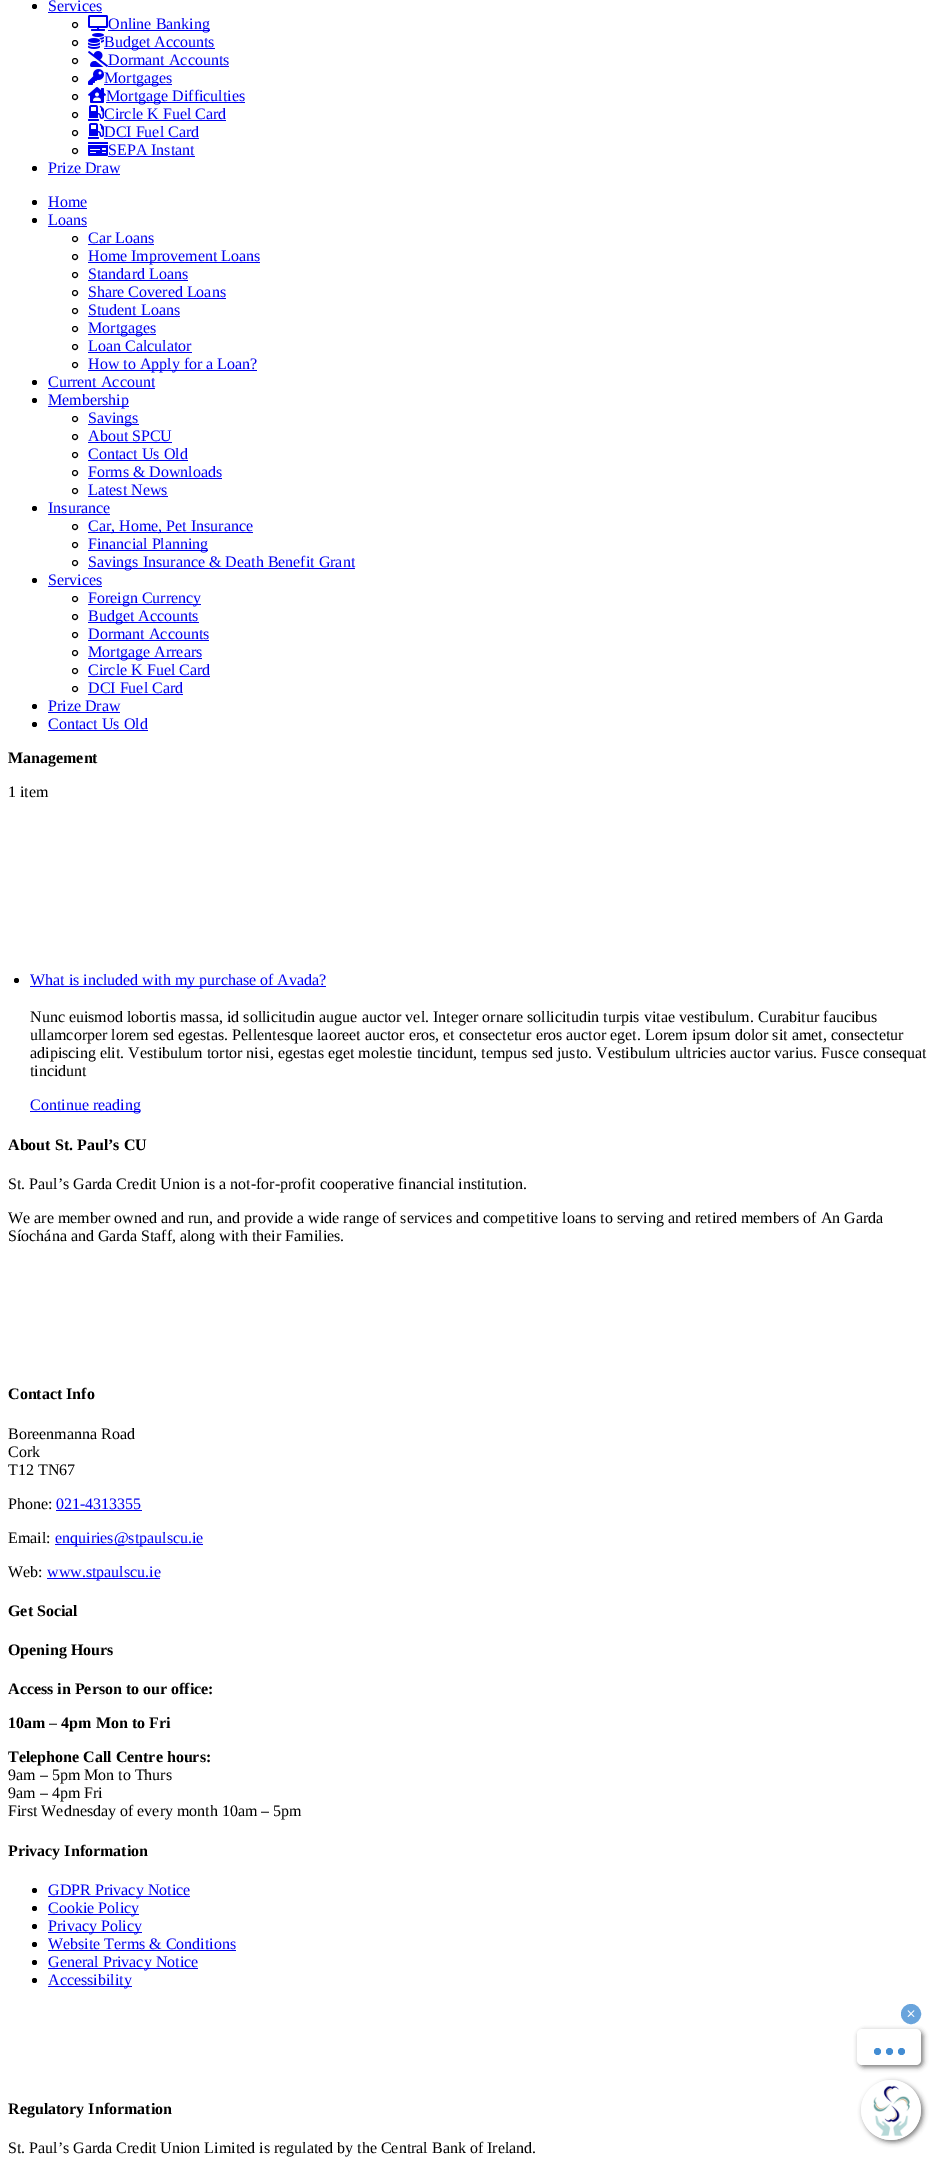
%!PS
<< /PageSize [941 2160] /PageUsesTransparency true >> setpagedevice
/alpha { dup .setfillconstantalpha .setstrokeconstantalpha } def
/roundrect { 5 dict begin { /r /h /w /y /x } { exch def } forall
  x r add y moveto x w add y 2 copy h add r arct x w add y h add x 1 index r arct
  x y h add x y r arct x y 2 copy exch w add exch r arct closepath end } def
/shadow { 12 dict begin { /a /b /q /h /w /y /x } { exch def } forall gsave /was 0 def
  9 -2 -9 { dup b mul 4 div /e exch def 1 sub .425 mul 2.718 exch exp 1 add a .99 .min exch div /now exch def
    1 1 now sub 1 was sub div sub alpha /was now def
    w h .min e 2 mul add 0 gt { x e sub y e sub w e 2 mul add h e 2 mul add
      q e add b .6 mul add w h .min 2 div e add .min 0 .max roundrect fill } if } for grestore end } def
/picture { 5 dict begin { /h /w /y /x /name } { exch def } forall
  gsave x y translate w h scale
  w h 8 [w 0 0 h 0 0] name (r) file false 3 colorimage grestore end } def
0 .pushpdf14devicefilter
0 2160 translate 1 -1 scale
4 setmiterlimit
1 setgray
0 0 941 2160 rectfill
0 setgray
newpath 34.5 6.5 2.5 0 360 arc closepath fill
/LiberationSerif-Regular [16 0 0 -16 0 0] selectfont
0 0 0.933 setrgbcolor
48 11 moveto (Services) show
48 12 54 1 rectfill
0 setgray
newpath 75 25 2.5 0 360 arc closepath stroke
(img1.rgb) 88 15 20 16 picture
0 0 0.933 setrgbcolor
108 30 102 1 rectfill
108 29 moveto (Online Banking) show
0 setgray
newpath 75 43 2.5 0 360 arc closepath stroke
(img2.rgb) 88 33 16 16 picture
0 0 0.933 setrgbcolor
104 48 111 1 rectfill
104 47 moveto (Budget Accounts) show
0 setgray
newpath 75 61 2.5 0 360 arc closepath stroke
(img3.rgb) 88 51 20 16 picture
0 0 0.933 setrgbcolor
108 65 moveto (Dormant Accounts) show
108 66 121 1 rectfill
0 setgray
newpath 75 79 2.5 0 360 arc closepath stroke
(img4.rgb) 88 69 16 16 picture
0 0 0.933 setrgbcolor
104 84 68 1 rectfill
104 83 moveto (Mortgages) show
0 setgray
newpath 75 97 2.5 0 360 arc closepath stroke
(img5.rgb) 88 87 18 16 picture
0 0 0.933 setrgbcolor
106 102 139 1 rectfill
106 101 moveto (Mortgage Difficulties) show
0 setgray
newpath 75 115 2.5 0 360 arc closepath stroke
(img6.rgb) 88 105 16 16 picture
0 0 0.933 setrgbcolor
104 119 moveto (Circle K Fuel Card) show
104 120 122 1 rectfill
0 setgray
newpath 75 133 2.5 0 360 arc closepath stroke
(img6.rgb) 88 123 16 16 picture
0 0 0.933 setrgbcolor
104 137 moveto (DCI Fuel Card) show
104 138 95 1 rectfill
0 setgray
newpath 75 151 2.5 0 360 arc closepath stroke
(img7.rgb) 88 142 20 14 picture
0 0 0.933 setrgbcolor
108 155 moveto (SEPA Instant) show
108 156 87 1 rectfill
0 setgray
newpath 34.5 168.5 2.5 0 360 arc closepath fill
0 0 0.933 setrgbcolor
48 173 moveto (Prize Draw) show
48 174 72 1 rectfill
0 setgray
newpath 34.5 202.5 2.5 0 360 arc closepath fill
0 0 0.933 setrgbcolor
48 207 moveto (Home) show
48 208 39 1 rectfill
0 setgray
newpath 34.5 220.5 2.5 0 360 arc closepath fill
0 0 0.933 setrgbcolor
48 225 moveto (Loans) show
48 226 39 1 rectfill
0 setgray
newpath 75 239 2.5 0 360 arc closepath stroke
0 0 0.933 setrgbcolor
88 243 moveto (Car Loans) show
88 244 66 1 rectfill
0 setgray
newpath 75 257 2.5 0 360 arc closepath stroke
0 0 0.933 setrgbcolor
88 262 172 1 rectfill
88 261 moveto (Home Improvement Loans) show
0 setgray
newpath 75 275 2.5 0 360 arc closepath stroke
0 0 0.933 setrgbcolor
88 279 moveto (Standard Loans) show
88 280 100 1 rectfill
0 setgray
newpath 75 293 2.5 0 360 arc closepath stroke
0 0 0.933 setrgbcolor
88 297 moveto (Share Covered Loans) show
88 298 138 1 rectfill
0 setgray
newpath 75 311 2.5 0 360 arc closepath stroke
0 0 0.933 setrgbcolor
88 315 moveto (Student Loans) show
88 316 92 1 rectfill
0 setgray
newpath 75 329 2.5 0 360 arc closepath stroke
0 0 0.933 setrgbcolor
88 334 68 1 rectfill
88 333 moveto (Mortgages) show
0 setgray
newpath 75 347 2.5 0 360 arc closepath stroke
0 0 0.933 setrgbcolor
88 351 moveto (Loan Calculator) show
88 352 104 1 rectfill
0 setgray
newpath 75 365 2.5 0 360 arc closepath stroke
0 0 0.933 setrgbcolor
88 370 169 1 rectfill
88 369 moveto (How to Apply for a Loan?) show
0 setgray
newpath 34.5 382.5 2.5 0 360 arc closepath fill
0 0 0.933 setrgbcolor
48 387 moveto (Current Account) show
48 388 107 1 rectfill
0 setgray
newpath 34.5 400.5 2.5 0 360 arc closepath fill
0 0 0.933 setrgbcolor
48 406 81 1 rectfill
48 405 moveto (Membership) show
0 setgray
newpath 75 419 2.5 0 360 arc closepath stroke
0 0 0.933 setrgbcolor
88 424 51 1 rectfill
88 423 moveto (Savings) show
0 setgray
newpath 75 437 2.5 0 360 arc closepath stroke
0 0 0.933 setrgbcolor
88 441 moveto (About SPCU) show
88 442 84 1 rectfill
0 setgray
newpath 75 455 2.5 0 360 arc closepath stroke
0 0 0.933 setrgbcolor
88 459 moveto (Contact Us Old) show
88 460 100 1 rectfill
0 setgray
newpath 75 473 2.5 0 360 arc closepath stroke
0 0 0.933 setrgbcolor
88 477 moveto (Forms & Downloads) show
88 478 134 1 rectfill
0 setgray
newpath 75 491 2.5 0 360 arc closepath stroke
0 0 0.933 setrgbcolor
88 495 moveto (Latest News) show
88 496 80 1 rectfill
0 setgray
newpath 34.5 508.5 2.5 0 360 arc closepath fill
0 0 0.933 setrgbcolor
48 513 moveto (Insurance) show
48 514 62 1 rectfill
0 setgray
newpath 75 527 2.5 0 360 arc closepath stroke
0 0 0.933 setrgbcolor
88 532 165 1 rectfill
88 531 moveto (Car, Home, Pet Insurance) show
0 setgray
newpath 75 545 2.5 0 360 arc closepath stroke
0 0 0.933 setrgbcolor
88 550 120 1 rectfill
88 549 moveto (Financial Planning) show
0 setgray
newpath 75 563 2.5 0 360 arc closepath stroke
0 0 0.933 setrgbcolor
88 568 267 1 rectfill
88 567 moveto (Savings Insurance & Death Benefit Grant) show
0 setgray
newpath 34.5 580.5 2.5 0 360 arc closepath fill
0 0 0.933 setrgbcolor
48 585 moveto (Services) show
48 586 54 1 rectfill
0 setgray
newpath 75 599 2.5 0 360 arc closepath stroke
0 0 0.933 setrgbcolor
88 604 113 1 rectfill
88 603 moveto (Foreign Currency) show
0 setgray
newpath 75 617 2.5 0 360 arc closepath stroke
0 0 0.933 setrgbcolor
88 622 111 1 rectfill
88 621 moveto (Budget Accounts) show
0 setgray
newpath 75 635 2.5 0 360 arc closepath stroke
0 0 0.933 setrgbcolor
88 639 moveto (Dormant Accounts) show
88 640 121 1 rectfill
0 setgray
newpath 75 653 2.5 0 360 arc closepath stroke
0 0 0.933 setrgbcolor
88 658 114 1 rectfill
88 657 moveto (Mortgage Arrears) show
0 setgray
newpath 75 671 2.5 0 360 arc closepath stroke
0 0 0.933 setrgbcolor
88 675 moveto (Circle K Fuel Card) show
88 676 122 1 rectfill
0 setgray
newpath 75 689 2.5 0 360 arc closepath stroke
0 0 0.933 setrgbcolor
88 693 moveto (DCI Fuel Card) show
88 694 95 1 rectfill
0 setgray
newpath 34.5 706.5 2.5 0 360 arc closepath fill
0 0 0.933 setrgbcolor
48 711 moveto (Prize Draw) show
48 712 72 1 rectfill
0 setgray
newpath 34.5 724.5 2.5 0 360 arc closepath fill
0 0 0.933 setrgbcolor
48 729 moveto (Contact Us Old) show
48 730 100 1 rectfill
/LiberationSerif-Bold [16 0 0 -16 0 0] selectfont
0 setgray
8 763 moveto (Management) show
/LiberationSerif-Regular [16 0 0 -16 0 0] selectfont
8 797 moveto (1 item) show
newpath 16.5 980.5 2.5 0 360 arc closepath fill
0 0 0.933 setrgbcolor
30 986 296 1 rectfill
30 985 moveto (What is included with my purchase of Avada?) show
0 setgray
30 1022 moveto (Nunc euismod lobortis massa, id sollicitudin augue auctor vel. Integer ornare sollicitudin turpis vitae vestibulum. Curabitur faucibus) show
30 1040 moveto (ullamcorper lorem sed egestas. Pellentesque laoreet auctor eros, et consectetur eros auctor eget. Lorem ipsum dolor sit amet, consectetur) show
30 1058 moveto (adipiscing elit. Vestibulum tortor nisi, egestas eget molestie tincidunt, tempus sed justo. Vestibulum ultricies auctor varius. Fusce consequat) show
30 1076 moveto (tincidunt) show
0 0 0.933 setrgbcolor
30 1111 110 1 rectfill
30 1110 moveto (Continue reading) show
/LiberationSerif-Bold [16 0 0 -16 0 0] selectfont
0 setgray
8 1150 moveto (About St. Paul’s CU) show
/LiberationSerif-Regular [16 0 0 -16 0 0] selectfont
8 1189 moveto (St. Paul’s Garda Credit Union is a not-for-profit cooperative financial institution.) show
8 1223 moveto (We are member owned and run, and provide a wide range of services and competitive loans to serving and retired members of An Garda) show
8 1241 moveto (Síochána and Garda Staff, along with their Families.) show
/LiberationSerif-Bold [16 0 0 -16 0 0] selectfont
8 1399 moveto (Contact Info) show
/LiberationSerif-Regular [16 0 0 -16 0 0] selectfont
8 1439 moveto (Boreenmanna Road) show
8 1457 moveto (Cork) show
8 1475 moveto (T12 TN67) show
8 1509 moveto (Phone:) show
0 0 0.933 setrgbcolor
56 1509 moveto (021-4313355) show
56 1510 86 1 rectfill
0 setgray
8 1543 moveto (Email:) show
0 0 0.933 setrgbcolor
55 1544 148 1 rectfill
55 1543 moveto (enquiries@stpaulscu.ie) show
0 setgray
8 1577 moveto (Web:) show
0 0 0.933 setrgbcolor
47 1578 113 1 rectfill
47 1577 moveto (www.stpaulscu.ie) show
/LiberationSerif-Bold [16 0 0 -16 0 0] selectfont
0 setgray
8 1616 moveto (Get Social) show
8 1655 moveto (Opening Hours) show
8 1694 moveto (Access in Person to our office:) show
8 1728 moveto (10am – 4pm Mon to Fri) show
8 1762 moveto (Telephone Call Centre hours:) show
/LiberationSerif-Regular [16 0 0 -16 0 0] selectfont
8 1780 moveto (9am – 5pm Mon to Thurs) show
8 1798 moveto (9am – 4pm Fri) show
8 1816 moveto (First Wednesday of every month 10am – 5pm) show
/LiberationSerif-Bold [16 0 0 -16 0 0] selectfont
8 1856 moveto (Privacy Information) show
newpath 34.5 1890.5 2.5 0 360 arc closepath fill
0 0 0.933 setrgbcolor
48 1896 142 1 rectfill
/LiberationSerif-Regular [16 0 0 -16 0 0] selectfont
48 1895 moveto (GDPR Privacy Notice) show
0 setgray
newpath 34.5 1908.5 2.5 0 360 arc closepath fill
0 0 0.933 setrgbcolor
48 1914 91 1 rectfill
48 1913 moveto (Cookie Policy) show
0 setgray
newpath 34.5 1926.5 2.5 0 360 arc closepath fill
0 0 0.933 setrgbcolor
48 1932 94 1 rectfill
48 1931 moveto (Privacy Policy) show
0 setgray
newpath 34.5 1944.5 2.5 0 360 arc closepath fill
0 0 0.933 setrgbcolor
48 1949 moveto (Website Terms & Conditions) show
48 1950 188 1 rectfill
0 setgray
newpath 34.5 1962.5 2.5 0 360 arc closepath fill
0 0 0.933 setrgbcolor
48 1968 150 1 rectfill
48 1967 moveto (General Privacy Notice) show
0 setgray
newpath 34.5 1980.5 2.5 0 360 arc closepath fill
0 0 0.933 setrgbcolor
48 1986 84 1 rectfill
48 1985 moveto (Accessibility) show
/LiberationSerif-Bold [16 0 0 -16 0 0] selectfont
0 setgray
8 2114 moveto (Regulatory Information) show
/LiberationSerif-Regular [16 0 0 -16 0 0] selectfont
8 2153 moveto (St. Paul’s Garda Credit Union Limited is regulated by the Central Bank of Ireland.) show
859 2031 64 36 5 2.5 0.53 shadow
0.412 0.643 0.863 setrgbcolor
newpath 911 2014 9 0 360 arc closepath gsave fill grestore
2 setlinewidth
stroke
/DejaVuSans-Regular [12 0 0 -12 0 0] selectfont
1 setgray
906 2018 moveto (✕) show
857 2029 64 36 5 roundrect fill
0.263 0.553 0.827 setrgbcolor
newpath 877.5 2051.5 3.5 0 360 arc closepath fill
newpath 889.5 2051.5 3.5 0 360 arc closepath fill
newpath 901.5 2051.5 3.5 0 360 arc closepath fill
0 setgray
863 2082 60 60 30 2.5 0.53 shadow
(img8.rgb) 861 2080 60 60 picture
.poppdf14devicefilter showpage
